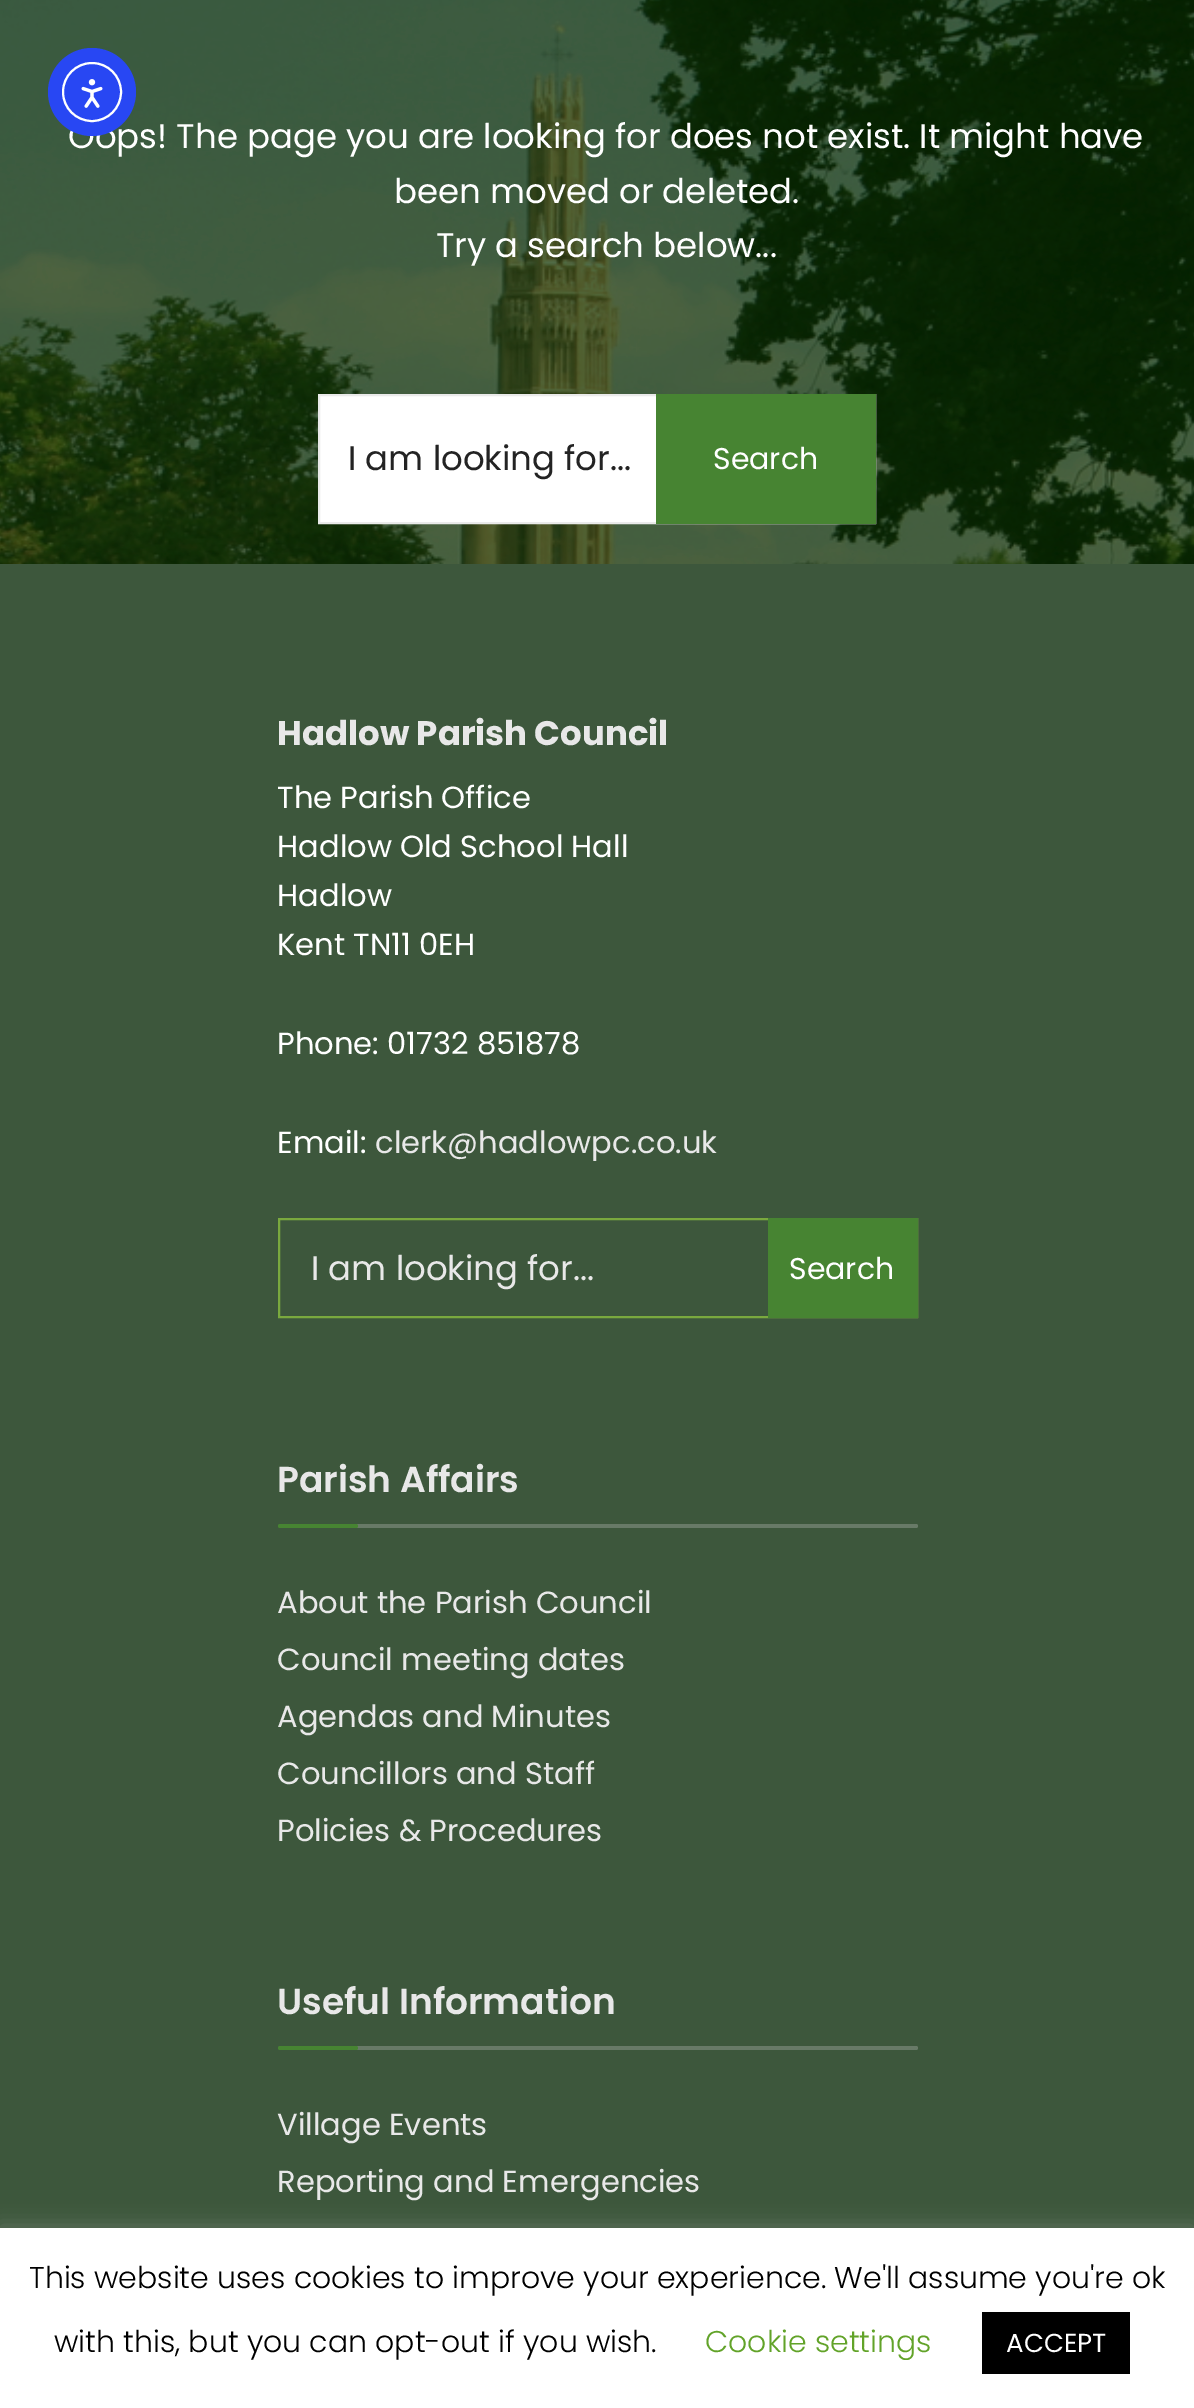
%!PS
<< /PageSize [1194 2408] /PageUsesTransparency true >> setpagedevice
/alpha { dup .setfillconstantalpha .setstrokeconstantalpha } def
/roundrect { 5 dict begin { /r /h /w /y /x } { exch def } forall
  x r add y moveto x w add y 2 copy h add r arct x w add y h add x 1 index r arct
  x y h add x y r arct x y 2 copy exch w add exch r arct closepath end } def
/shadow { 12 dict begin { /a /b /q /h /w /y /x } { exch def } forall gsave /was 0 def
  9 -2 -9 { dup b mul 4 div /e exch def 1 sub .425 mul 2.718 exch exp 1 add a .99 .min exch div /now exch def
    1 1 now sub 1 was sub div sub alpha /was now def
    w h .min e 2 mul add 0 gt { x e sub y e sub w e 2 mul add h e 2 mul add
      q e add b .6 mul add w h .min 2 div e add .min 0 .max roundrect fill } if } for grestore end } def
/picture { 5 dict begin { /h /w /y /x /name } { exch def } forall
  gsave x y translate w h scale
  w h 8 [w 0 0 h 0 0] name (r) file false 3 colorimage grestore end } def
0 .pushpdf14devicefilter
0 2408 translate 1 -1 scale
4 setmiterlimit
0.02 0.169 0 setrgbcolor
0 0 1194 2408 rectfill
(img2.rgb) 0 0 1194 564 picture
/Poppins-Regular [34 0 0 -34 0 0] selectfont
1 setgray
68 148 moveto (Oops! The page you are looking for does not exist. It might have) show
0.157 0.278 0.953 setrgbcolor
newpath 92 92 44 0 360 arc closepath fill
1 setgray
2 setlinewidth
newpath 92 92 29 0 360 arc closepath stroke
(img1.rgb) 81 79 22 29 picture
394 203 moveto (been moved or deleted.) show
436 257 moveto (Try a search below...) show
320 396 336 126 rectfill
0.918 setgray
319 395 556 128 rectstroke
0.137 setgray
348 470 moveto (I am looking for...) show
0.278 0.518 0.196 setrgbcolor
656 394 220 130 rectfill
/Poppins-Regular [30 0 0 -30 0 0] selectfont
1 setgray
713 469 moveto (Search) show
0.239 0.341 0.235 setrgbcolor
0 564 1194 1664 rectfill
/Poppins-Bold [34 0 0 -34 0 0] selectfont
0.91 setgray
277 745 moveto (Hadlow Parish Council) show
/Poppins-Regular [30.6 0 0 -30.6 0 0] selectfont
1 setgray
277 808 moveto (The Parish Office) show
277 857 moveto (Hadlow Old School Hall) show
277 906 moveto (Hadlow) show
277 955 moveto (Kent TN11 0EH) show
277 1054 moveto (Phone: 01732 851878) show
277 1153 moveto (Email:) show
0.91 setgray
375 1153 moveto (clerk@hadlowpc.co.uk) show
0.478 0.663 0.243 setrgbcolor
279 1219 638 98 rectstroke
/Poppins-Regular [34 0 0 -34 0 0] selectfont
0.91 setgray
311 1280 moveto (I am looking for...) show
0.278 0.518 0.196 setrgbcolor
768 1218 150 100 rectfill
/Poppins-Regular [30 0 0 -30 0 0] selectfont
1 setgray
789 1279 moveto (Search) show
/Poppins-SemiBold [36 0 0 -36 0 0] selectfont
0.91 setgray
277 1492 moveto (Parish Affairs) show
0.408 0.478 0.404 setrgbcolor
354 1524 564 4 2 roundrect fill
0.278 0.518 0.196 setrgbcolor
278 1524 80 4 2 roundrect fill
/Poppins-Regular [30.6 0 0 -30.6 0 0] selectfont
0.91 setgray
277 1613 moveto (About the Parish Council) show
277 1670 moveto (Council meeting dates) show
277 1727 moveto (Agendas and Minutes) show
277 1784 moveto (Councillors and Staff) show
277 1841 moveto (Policies & Procedures) show
/Poppins-SemiBold [36 0 0 -36 0 0] selectfont
277 2014 moveto (Useful Information) show
0.408 0.478 0.404 setrgbcolor
354 2046 564 4 2 roundrect fill
0.278 0.518 0.196 setrgbcolor
278 2046 80 4 2 roundrect fill
/Poppins-Regular [30.6 0 0 -30.6 0 0] selectfont
0.91 setgray
277 2135 moveto (Village Events) show
277 2192 moveto (Reporting and Emergencies) show
0.675 0.671 0.671 setrgbcolor
0 2226 1194 180 0 10 0.3 shadow
1 setgray
0 2228 1194 180 rectfill
/Poppins-Light [30 0 0 -30 0 0] selectfont
0 setgray
29 2288 moveto (This website uses cookies to improve your experience. We'll assume you're ok) show
54 2352 moveto (with this, but you can opt-out if you wish.) show
0.384 0.639 0.161 setrgbcolor
705 2352 moveto (Cookie settings) show
0 setgray
982 2312 148 62 rectfill
/Poppins-Regular [26 0 0 -26 0 0] selectfont
1 setgray
1006 2352 moveto (ACCEPT) show
.poppdf14devicefilter showpage
